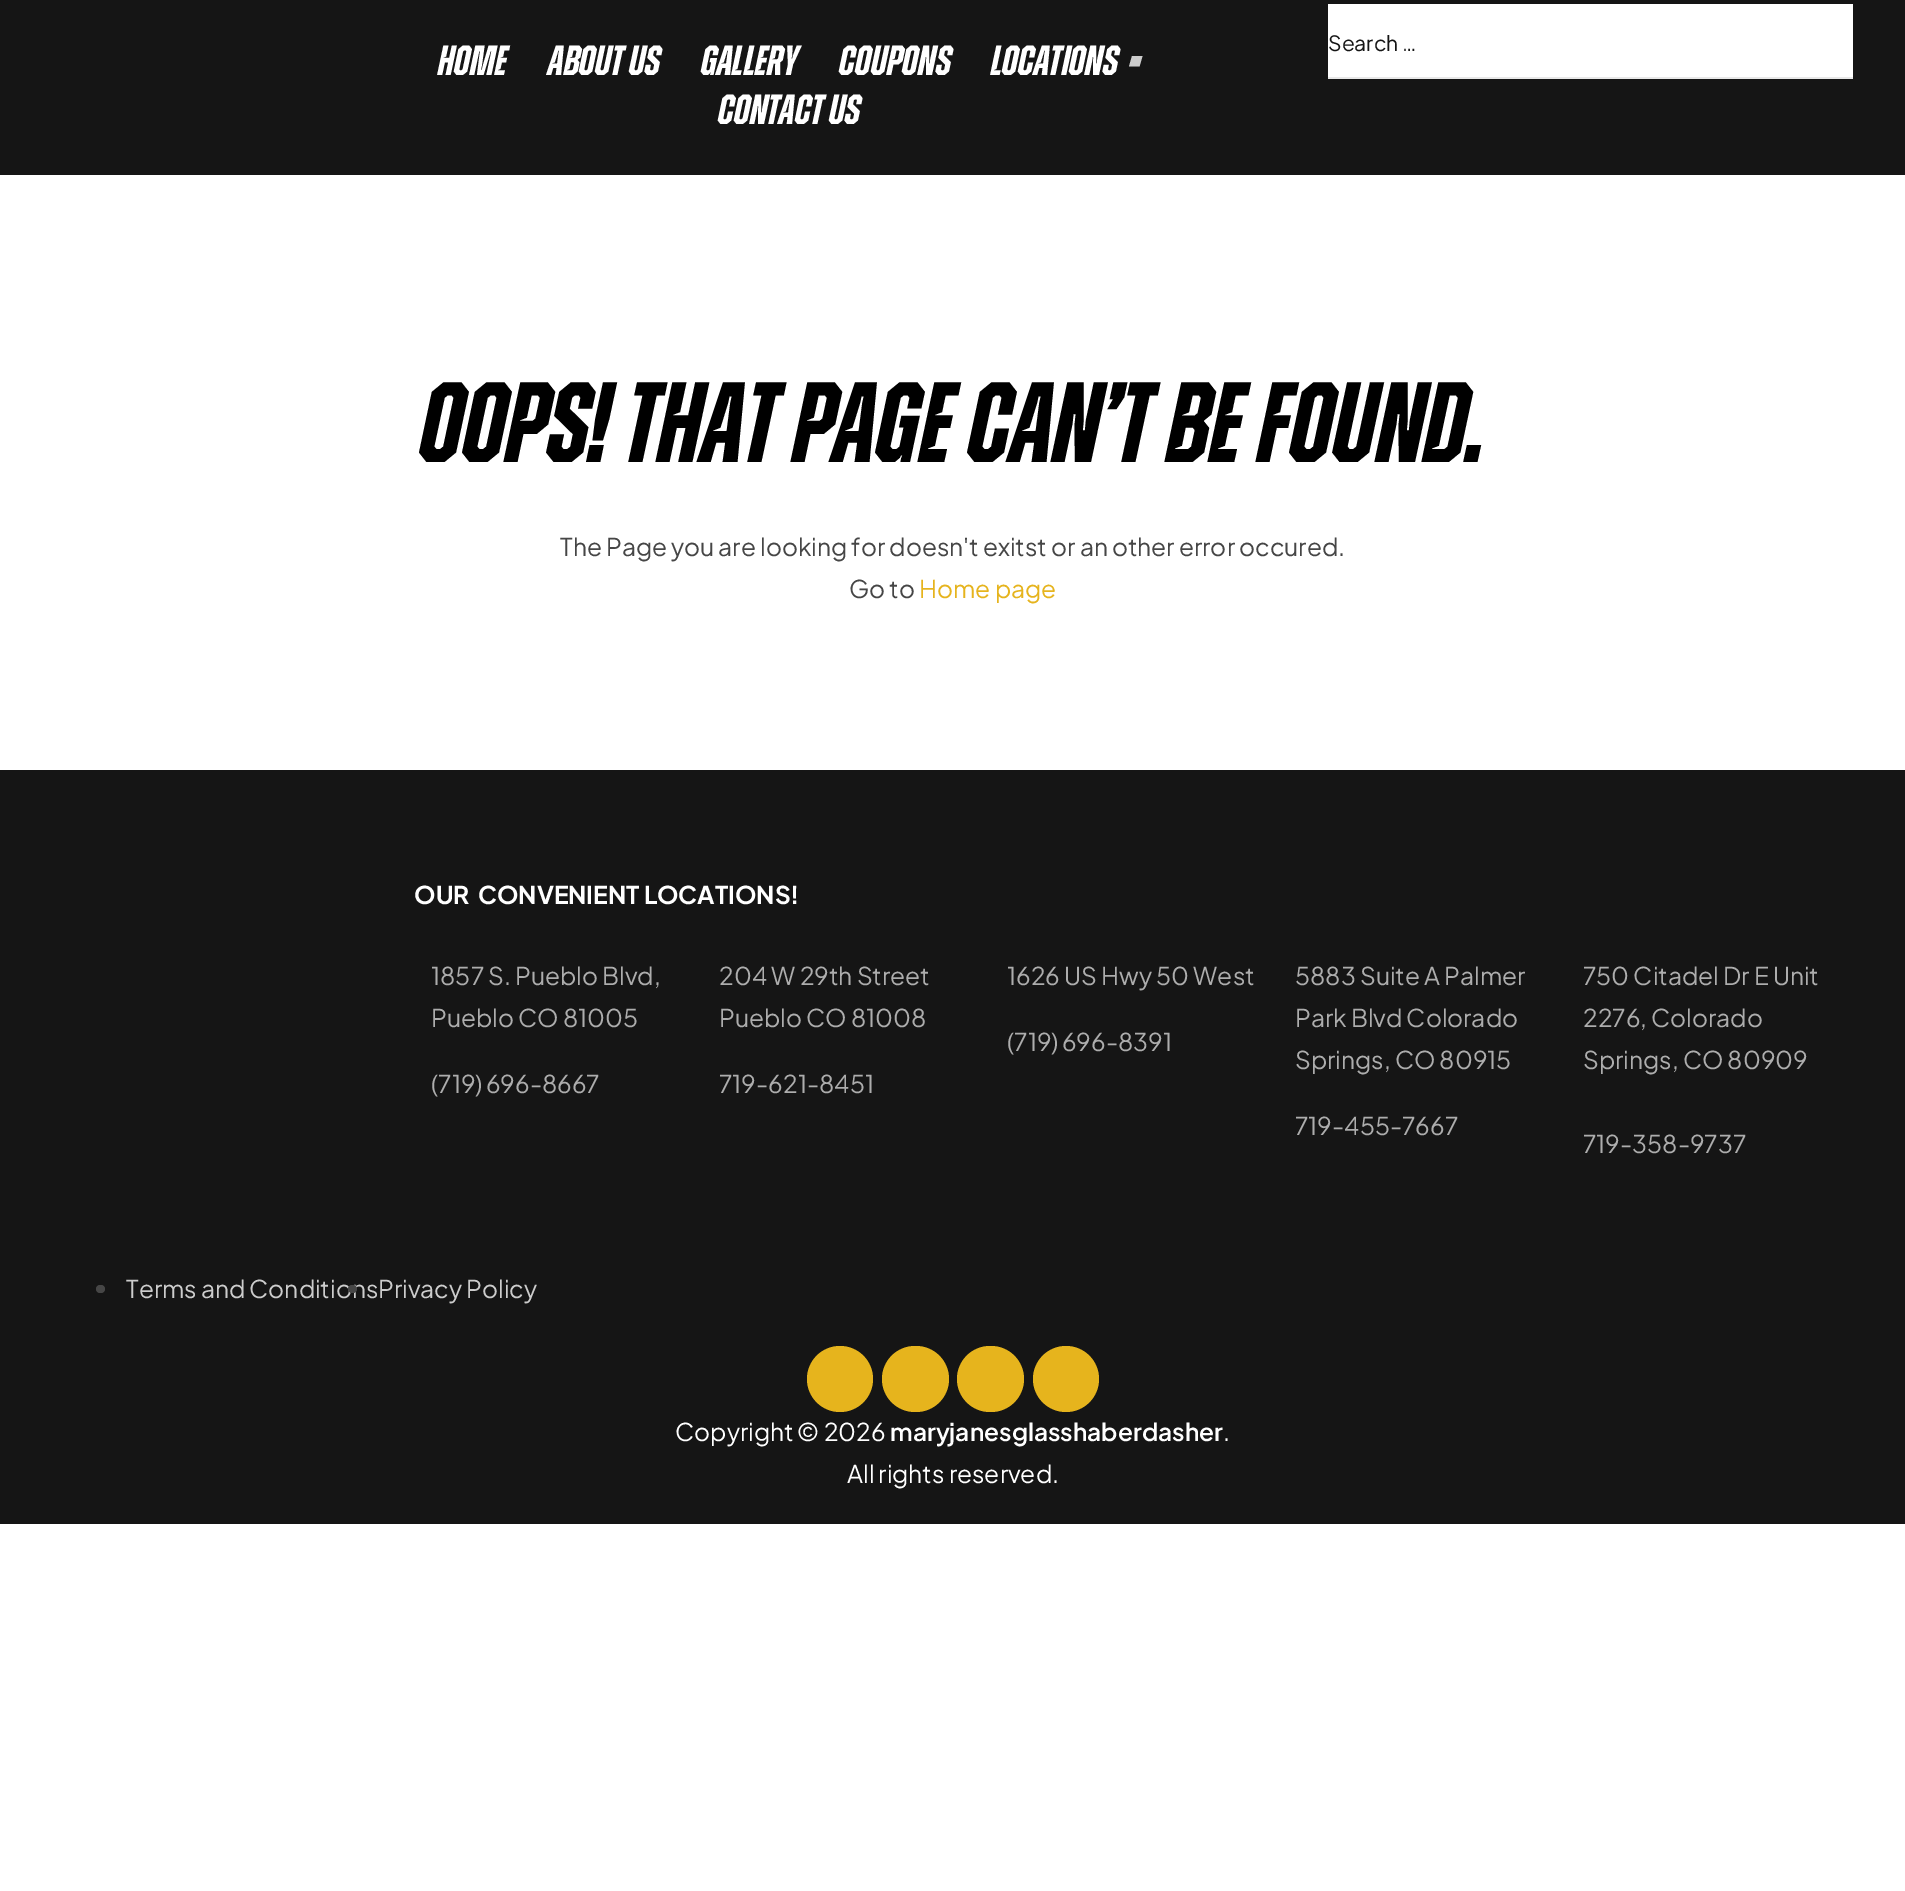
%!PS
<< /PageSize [1905 1891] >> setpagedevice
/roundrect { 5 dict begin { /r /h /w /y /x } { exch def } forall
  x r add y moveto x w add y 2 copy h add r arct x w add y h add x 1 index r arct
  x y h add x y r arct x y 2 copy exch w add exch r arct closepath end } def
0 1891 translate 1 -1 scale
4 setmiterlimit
1 setgray
0 0 1905 1891 rectfill
0.082 setgray
0 0 1905 175 rectfill
/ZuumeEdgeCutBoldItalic-Bold [42 0 0 -42 0 0] selectfont
1 setgray
438 75 moveto (Home) show
548 75 moveto (About us) show
701 75 moveto (Gallery) show
839 75 moveto (Coupons) show
991 75 moveto (Locations) show
0.8 setgray
newpath 1132 56 moveto 1142.5 56 lineto 1139.5 66.5 lineto 1129 66.5 lineto closepath fill
1 setgray
718 124 moveto (Contact Us) show
1328 4 525 73 rectfill
0.91 setgray
1328 77 525 2 rectfill
/PlusJakartaSans-Regular [21 0 0 -21 0 0] selectfont
0.082 setgray
1328 51 moveto (Search …) show
/ZuumeEdgeCutBoldItalic-Bold [113.75 0 0 -113.75 0 0] selectfont
0 setgray
420 462 moveto (OOPS! THAT PAGE CAN’T BE FOUND.) show
/PlusJakartaSans-Regular [24.5 0 0 -24.5 0 0] selectfont
0.275 setgray
560 556 moveto (The Page you are looking for doesn't exitst or an other error occured.) show
849 598 moveto (Go to) show
0.902 0.706 0.114 setrgbcolor
919 598 moveto (Home page) show
0.082 setgray
0 770 1905 754 rectfill
/PlusJakartaSans-Bold [24.5 0 0 -24.5 0 0] selectfont
1 setgray
414 904 moveto (OUR  CONVENIENT LOCATIONS!) show
/PlusJakartaSans-Regular [24.5 0 0 -24.5 0 0] selectfont
0.678 setgray
431 985 moveto (1857 S. Pueblo Blvd,) show
431 1027 moveto (Pueblo CO 81005) show
431 1093 moveto -1 0 32 (\(719\) 696-8667) widthshow
719 985 moveto (204 W 29th Street) show
719 1027 moveto (Pueblo CO 81008) show
719 1093 moveto (719-621-8451) show
1007 985 moveto (1626 US Hwy 50 West) show
1007 1051 moveto -1 0 32 (\(719\) 696-8391) widthshow
1295 985 moveto (5883 Suite A Palmer) show
1295 1027 moveto (Park Blvd Colorado) show
1295 1069 moveto (Springs, CO 80915) show
1295 1135 moveto (719-455-7667) show
1583 985 moveto (750 Citadel Dr E Unit) show
1583 1027 moveto (2276, Colorado) show
1583 1069 moveto (Springs, CO 80909) show
1583 1153 moveto (719-358-9737) show
0.275 setgray
96 1285 9 8 4 roundrect fill
0.8 setgray
126 1298 moveto (Terms and ConditionsPrivacy Policy) show
0.275 setgray
348 1285 9 8 4 roundrect fill
0.902 0.706 0.114 setrgbcolor
newpath 840 1379 33 0 360 arc closepath fill
882 1346 67 66 33 roundrect fill
957 1346 67 66 33 roundrect fill
newpath 1066 1379 33 0 360 arc closepath fill
1 setgray
675 1441 moveto (Copyright © 2026) show
/PlusJakartaSans-SemiBold [24.5 0 0 -24.5 0 0] selectfont
890 1441 moveto (maryjanesglasshaberdasher) show
/PlusJakartaSans-Regular [24.5 0 0 -24.5 0 0] selectfont
1223 1441 moveto (.) show
847 1483 moveto (All rights reserved.) show
showpage
